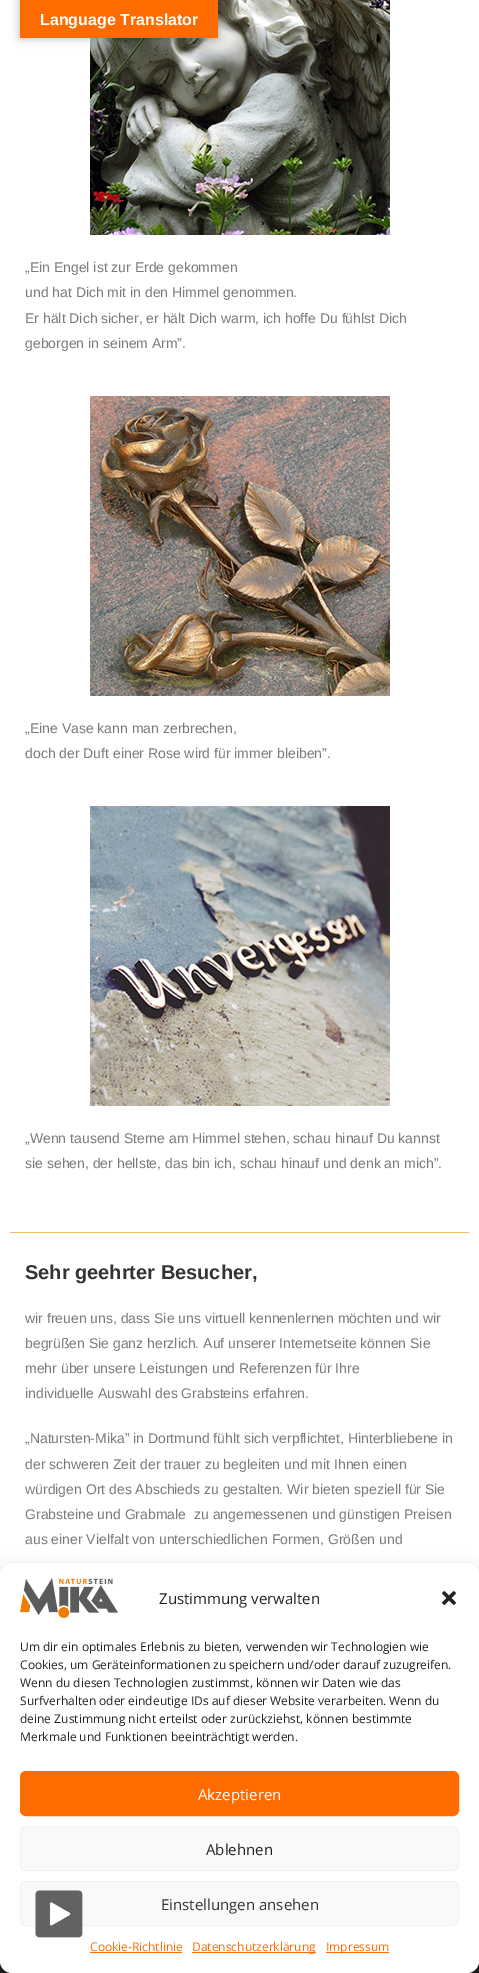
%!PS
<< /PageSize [479 1973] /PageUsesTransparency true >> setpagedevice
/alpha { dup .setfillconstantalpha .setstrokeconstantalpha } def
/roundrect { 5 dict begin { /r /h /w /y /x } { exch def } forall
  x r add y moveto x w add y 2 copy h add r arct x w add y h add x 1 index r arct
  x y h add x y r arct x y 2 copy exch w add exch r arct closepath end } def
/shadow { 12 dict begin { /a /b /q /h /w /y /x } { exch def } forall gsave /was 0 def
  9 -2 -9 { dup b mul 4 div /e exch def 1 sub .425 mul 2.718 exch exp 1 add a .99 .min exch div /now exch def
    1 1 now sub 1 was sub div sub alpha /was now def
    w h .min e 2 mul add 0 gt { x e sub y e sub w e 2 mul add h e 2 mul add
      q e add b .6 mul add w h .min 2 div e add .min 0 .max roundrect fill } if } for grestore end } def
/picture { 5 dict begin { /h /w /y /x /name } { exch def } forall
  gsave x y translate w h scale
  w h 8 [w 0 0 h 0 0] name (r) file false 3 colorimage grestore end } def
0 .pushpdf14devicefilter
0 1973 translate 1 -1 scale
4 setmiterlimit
1 setgray
0 0 479 1973 rectfill
(img1.rgb) 90 0 300 235 picture
0 setgray
20 0 198 38 0 4.5 0.3 shadow
1 0.42 0 setrgbcolor
20 0 198 38 rectfill
/LiberationSans-Bold [16 0 0 -16 0 0] selectfont
1 setgray
40 25 moveto (Language Translator) show
/LiberationSans-Regular [14 0 0 -14 0 0] selectfont
0.478 setgray
25 272 moveto („Ein Engel ist zur Erde gekommen) show
25 297 moveto (und hat Dich mit in den Himmel genommen.) show
25 323 moveto (Er hält Dich sicher, er hält Dich warm, ich hoffe Du fühlst Dich) show
25 348 moveto (geborgen in seinem Arm”.) show
(img2.rgb) 90 396 300 300 picture
25 733 moveto („Eine Vase kann man zerbrechen,) show
25 758 moveto (doch der Duft einer Rose wird für immer bleiben”.) show
(img3.rgb) 90 806 300 300 picture
25 1143 moveto („Wenn tausend Sterne am Himmel stehen, schau hinauf Du kannst) show
25 1168 moveto (sie sehen, der hellste, das bin ich, schau hinauf und denk an mich”.) show
0.937 0.737 0.404 setrgbcolor
10 1232 459 1 rectfill
/LiberationSans-Bold [20 0 0 -20 0 0] selectfont
0.2 setgray
25 1279 moveto (Sehr geehrter Besucher,) show
/LiberationSans-Regular [14 0 0 -14 0 0] selectfont
0.478 setgray
25 1323 moveto (wir freuen uns, dass Sie uns virtuell kennenlernen möchten und wir) show
25 1348 moveto (begrüßen Sie ganz herzlich. Auf unserer Internetseite können Sie) show
25 1373 moveto (mehr über unsere Leistungen und Referenzen für Ihre) show
25 1398 moveto (individuelle Auswahl des Grabsteins erfahren.) show
25 1443 moveto („Natursten-Mika” in Dortmund fühlt sich verpflichtet, Hinterbliebene in) show
25 1469 moveto (der schweren Zeit der trauer zu begleiten und mit Ihnen einen) show
25 1494 moveto (würdigen Ort des Abschieds zu gestalten. Wir bieten speziell für Sie) show
25 1519 moveto (Grabsteine und Grabmale  zu angemessenen und günstigen Preisen) show
25 1544 moveto (aus einer Vielfalt von unterschiedlichen Formen, Größen und) show
0.133 setgray
0 1961 479 12 rectfill
0 setgray
0 1569 479 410 12 3 0.23 shadow
0 1573 479 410 12 10 0.19 shadow
1 setgray
0 1563 479 410 12 roundrect fill
(img4.rgb) 20 1578 98 40 picture
/OpenSans-Regular [15 0 0 -15 0 0] selectfont
0.133 setgray
159 1604 moveto (Zustimmung verwalten) show
(img5.rgb) 442 1591 14 14 picture
/OpenSans-Regular [12 0 0 -12 0 0] selectfont
20 1651 moveto (Um dir ein optimales Erlebnis zu bieten, verwenden wir Technologien wie) show
20 1669 moveto (Cookies, um Geräteinformationen zu speichern und/oder darauf zuzugreifen.) show
20 1687 moveto (Wenn du diesen Technologien zustimmst, können wir Daten wie das) show
20 1705 moveto (Surfverhalten oder eindeutige IDs auf dieser Website verarbeiten. Wenn du) show
20 1723 moveto (deine Zustimmung nicht erteilst oder zurückziehst, können bestimmte) show
20 1741 moveto (Merkmale und Funktionen beeinträchtigt werden.) show
1 0.42 0 setrgbcolor
20.5 1771.5 438 44 5.5 roundrect gsave fill grestore
stroke
/OpenSans-Regular [15 0 0 -15 0 0] selectfont
1 setgray
198 1800 moveto (Akzeptieren) show
0.976 setgray
20.5 1826.5 438 44 5.5 roundrect gsave fill grestore
0.949 setgray
stroke
0.133 setgray
206 1855 moveto (Ablehnen) show
0.976 setgray
20.5 1881.5 438 44 5.5 roundrect gsave fill grestore
0.949 setgray
stroke
0.2 setgray
161 1910 moveto (Einstellungen ansehen) show
/OpenSans-Regular [12 0 0 -12 0 0] selectfont
1 0.42 0 setrgbcolor
90 1951 moveto (Cookie-Richtlinie) show
90 1952 92 1 rectfill
192 1952 124 1 rectfill
192 1951 moveto (Datenschutzerklärung) show
326 1952 63 1 rectfill
326 1951 moveto (Impressum) show
(img6.rgb) 35 1890 48 48 picture
.poppdf14devicefilter showpage
